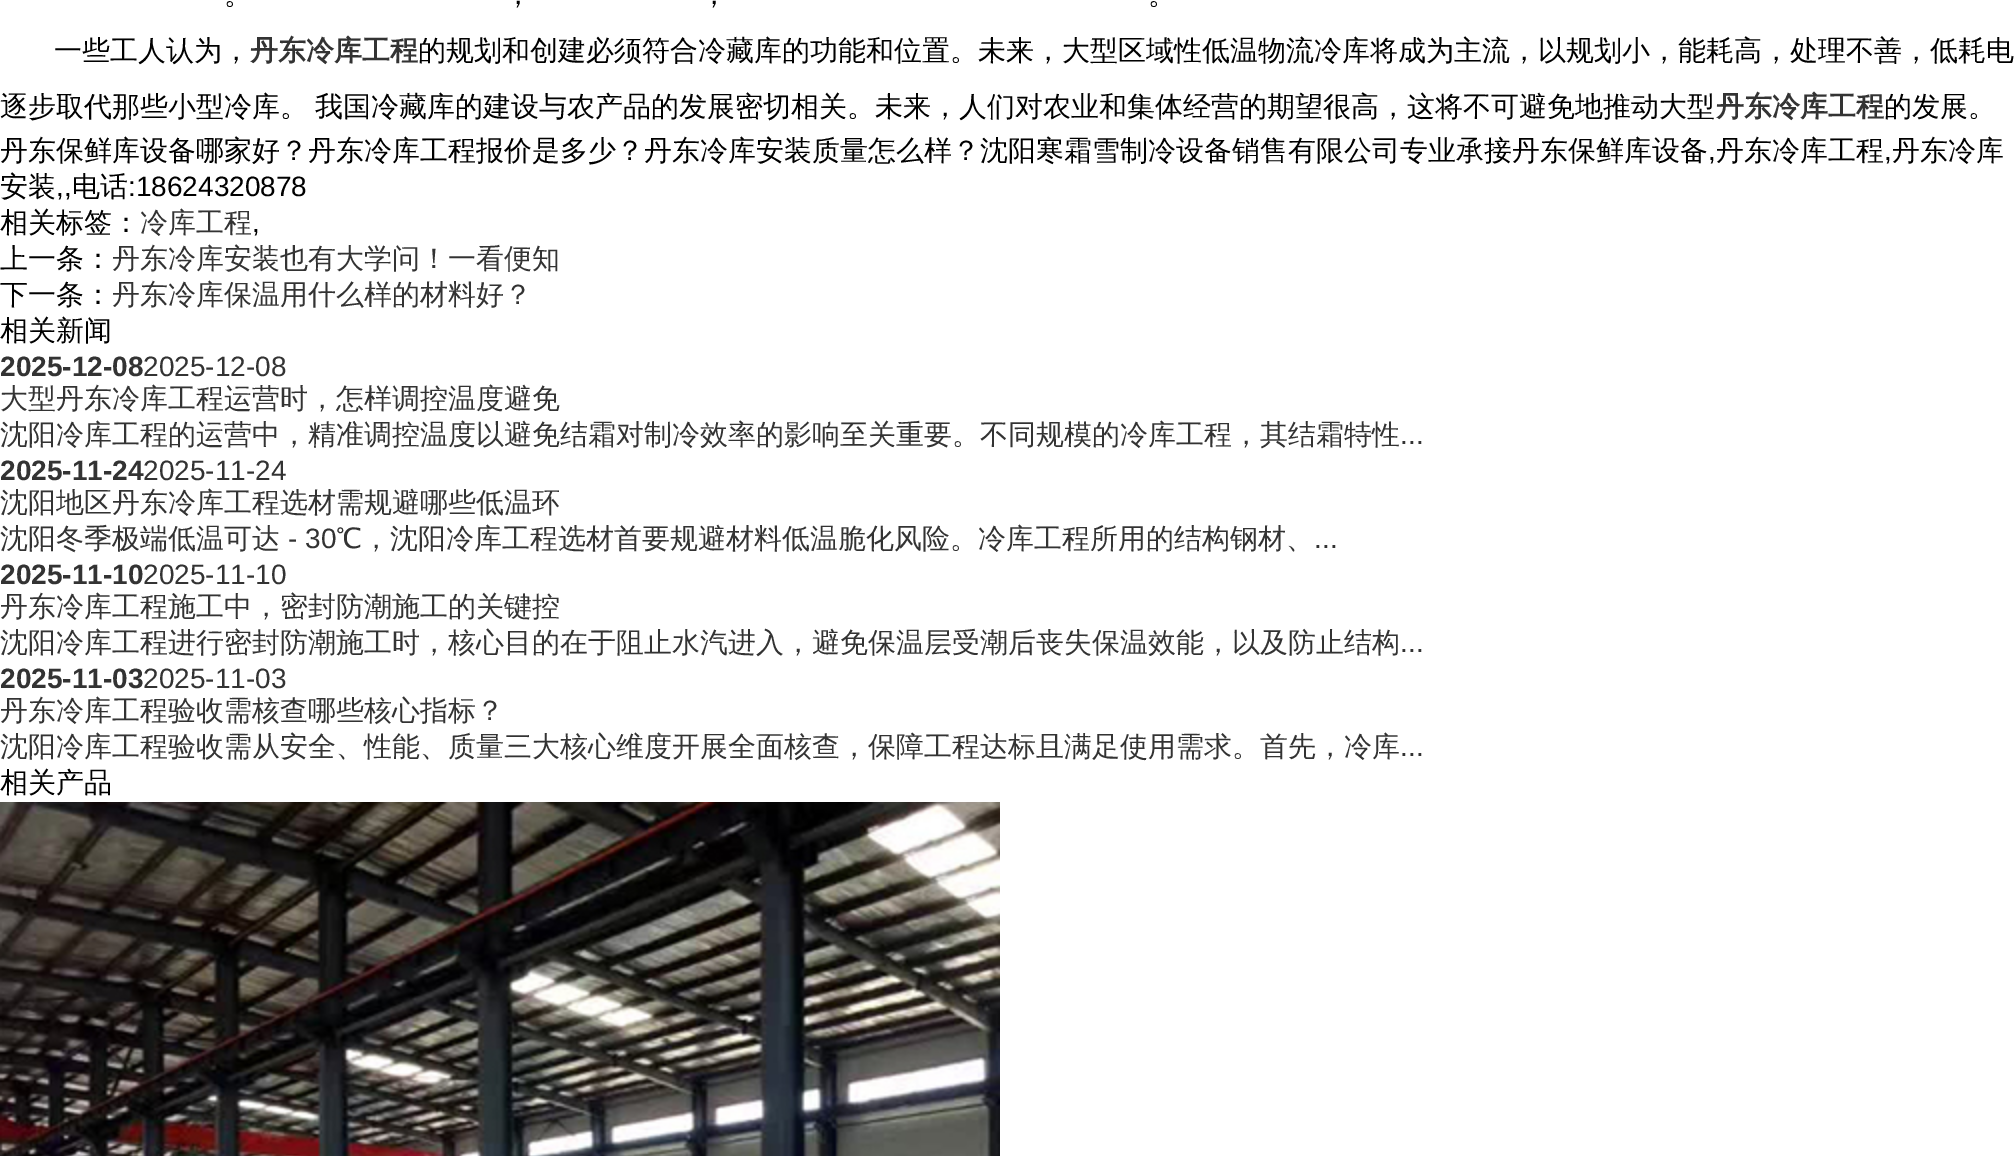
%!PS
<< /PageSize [2015 1156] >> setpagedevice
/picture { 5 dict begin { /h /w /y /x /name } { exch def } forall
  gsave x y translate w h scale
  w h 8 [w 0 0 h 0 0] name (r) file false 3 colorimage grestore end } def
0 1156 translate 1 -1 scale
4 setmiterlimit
1 setgray
0 0 2015 1156 rectfill
/WenQuanYiZenHei-Medium [28 0 0 -28 0 0] selectfont
0 setgray
224 4 moveto (。) show
504 4 moveto (，) show
700 4 moveto (，) show
1148 4 moveto (。) show
54 60 moveto (一些工人认为，) show
/WenQuanYiZenHei-Bold [28 0 0 -28 0 0] selectfont
0.2 setgray
250 60 moveto (丹东冷库工程) show
/WenQuanYiZenHei-Medium [28 0 0 -28 0 0] selectfont
0 setgray
418 60 moveto (的规划和创建必须符合冷藏库的功能和位置。未来，大型区域性低温物流冷库将成为主流，以规划小，能耗高，处理不善，低耗电) show
0 116 moveto -1 0 32 (逐步取代那些小型冷库。 我国冷藏库的建设与农产品的发展密切相关。未来，人们对农业和集体经营的期望很高，这将不可避免地推动大型) widthshow
/WenQuanYiZenHei-Bold [28 0 0 -28 0 0] selectfont
0.2 setgray
1716 116 moveto (丹东冷库工程) show
/WenQuanYiZenHei-Medium [28 0 0 -28 0 0] selectfont
0 setgray
1884 116 moveto (的发展。) show
0 160 moveto (丹东保鲜库设备哪家好？丹东冷库工程报价是多少？丹东冷库安装质量怎么样？沈阳寒霜雪制冷设备销售有限公司专业承接丹东保鲜库设备) show
/LiberationSans-Regular [28 0 0 -28 0 0] selectfont
1708 160 moveto (,) show
/WenQuanYiZenHei-Medium [28 0 0 -28 0 0] selectfont
1716 160 moveto (丹东冷库工程) show
/LiberationSans-Regular [28 0 0 -28 0 0] selectfont
1884 160 moveto (,) show
/WenQuanYiZenHei-Medium [28 0 0 -28 0 0] selectfont
1892 160 moveto (丹东冷库) show
0 196 moveto (安装) show
/LiberationSans-Regular [28 0 0 -28 0 0] selectfont
56 196 moveto (,,) show
/WenQuanYiZenHei-Medium [28 0 0 -28 0 0] selectfont
72 196 moveto (电话) show
/LiberationSans-Regular [28 0 0 -28 0 0] selectfont
128 196 moveto (:18624320878) show
/WenQuanYiZenHei-Medium [28 0 0 -28 0 0] selectfont
0 232 moveto (相关标签：) show
0.2 setgray
140 232 moveto (冷库工程) show
/LiberationSans-Regular [28 0 0 -28 0 0] selectfont
0 setgray
252 232 moveto (,) show
/WenQuanYiZenHei-Medium [28 0 0 -28 0 0] selectfont
0 268 moveto (上一条：) show
0.2 setgray
112 268 moveto (丹东冷库安装也有大学问！一看便知) show
0 setgray
0 304 moveto (下一条：) show
0.2 setgray
112 304 moveto (丹东冷库保温用什么样的材料好？) show
0 setgray
0 340 moveto (相关新闻) show
/LiberationSans-Bold [28 0 0 -28 0 0] selectfont
0.2 setgray
0 376 moveto (2025-12-08) show
/LiberationSans-Regular [28 0 0 -28 0 0] selectfont
143 376 moveto (2025-12-08) show
/WenQuanYiZenHei-Medium [28 0 0 -28 0 0] selectfont
0 408 moveto (大型丹东冷库工程运营时，怎样调控温度避免) show
0 444 moveto (沈阳冷库工程的运营中，精准调控温度以避免结霜对制冷效率的影响至关重要。不同规模的冷库工程，其结霜特性) show
/LiberationSans-Regular [28 0 0 -28 0 0] selectfont
1400 444 moveto (...) show
/LiberationSans-Bold [28 0 0 -28 0 0] selectfont
0 480 moveto (2025-11-24) show
/LiberationSans-Regular [28 0 0 -28 0 0] selectfont
143 480 moveto (2025-11-24) show
/WenQuanYiZenHei-Medium [28 0 0 -28 0 0] selectfont
0 512 moveto (沈阳地区丹东冷库工程选材需规避哪些低温环) show
0 548 moveto (沈阳冬季极端低温可达) show
/LiberationSans-Regular [28 0 0 -28 0 0] selectfont
288 548 moveto (- 30) show
/WenQuanYiZenHei-Medium [28 0 0 -28 0 0] selectfont
336 548 moveto (℃，沈阳冷库工程选材首要规避材料低温脆化风险。冷库工程所用的结构钢材、) show
/LiberationSans-Regular [28 0 0 -28 0 0] selectfont
1314 548 moveto (...) show
/LiberationSans-Bold [28 0 0 -28 0 0] selectfont
0 584 moveto (2025-11-10) show
/LiberationSans-Regular [28 0 0 -28 0 0] selectfont
143 584 moveto (2025-11-10) show
/WenQuanYiZenHei-Medium [28 0 0 -28 0 0] selectfont
0 616 moveto (丹东冷库工程施工中，密封防潮施工的关键控) show
0 652 moveto (沈阳冷库工程进行密封防潮施工时，核心目的在于阻止水汽进入，避免保温层受潮后丧失保温效能，以及防止结构) show
/LiberationSans-Regular [28 0 0 -28 0 0] selectfont
1400 652 moveto (...) show
/LiberationSans-Bold [28 0 0 -28 0 0] selectfont
0 688 moveto (2025-11-03) show
/LiberationSans-Regular [28 0 0 -28 0 0] selectfont
143 688 moveto (2025-11-03) show
/WenQuanYiZenHei-Medium [28 0 0 -28 0 0] selectfont
0 720 moveto (丹东冷库工程验收需核查哪些核心指标？) show
0 756 moveto (沈阳冷库工程验收需从安全、性能、质量三大核心维度开展全面核查，保障工程达标且满足使用需求。首先，冷库) show
/LiberationSans-Regular [28 0 0 -28 0 0] selectfont
1400 756 moveto (...) show
/WenQuanYiZenHei-Medium [28 0 0 -28 0 0] selectfont
0 setgray
0 792 moveto (相关产品) show
(img1.rgb) 0 802 1000 354 picture
showpage
